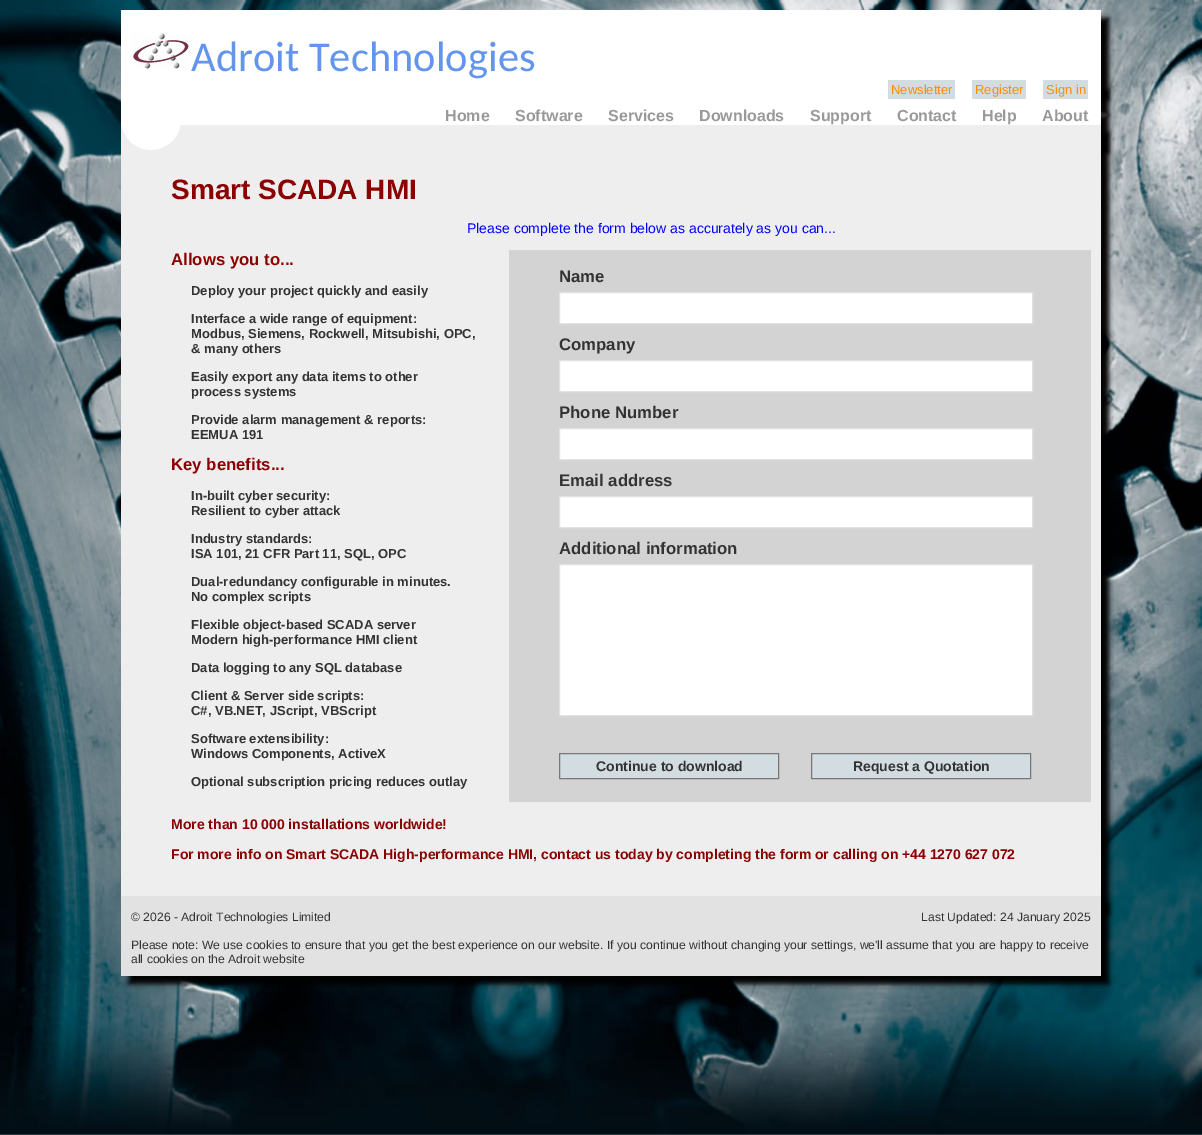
%!PS
<< /PageSize [1202 1135] /PageUsesTransparency true >> setpagedevice
/alpha { dup .setfillconstantalpha .setstrokeconstantalpha } def
/roundrect { 5 dict begin { /r /h /w /y /x } { exch def } forall
  x r add y moveto x w add y 2 copy h add r arct x w add y h add x 1 index r arct
  x y h add x y r arct x y 2 copy exch w add exch r arct closepath end } def
/shadow { 12 dict begin { /a /b /q /h /w /y /x } { exch def } forall gsave /was 0 def
  9 -2 -9 { dup b mul 4 div /e exch def 1 sub .425 mul 2.718 exch exp 1 add a .99 .min exch div /now exch def
    1 1 now sub 1 was sub div sub alpha /was now def
    w h .min e 2 mul add 0 gt { x e sub y e sub w e 2 mul add h e 2 mul add
      q e add b .6 mul add w h .min 2 div e add .min 0 .max roundrect fill } if } for grestore end } def
/picture { 5 dict begin { /h /w /y /x /name } { exch def } forall
  gsave x y translate w h scale
  w h 8 [w 0 0 h 0 0] name (r) file false 3 colorimage grestore end } def
0 .pushpdf14devicefilter
0 1135 translate 1 -1 scale
4 setmiterlimit
1 setgray
0 0 1202 1135 rectfill
(img1.rgb) 0 0 1202 1135 picture
0 setgray
129 18 980 82 0 2.5 1 shadow
1 setgray
121 10 980 72 rectfill
(img2.rgb) 131 33 60 36 picture
/Carlito-Regular [42.5 0 0 -42.5 0 0] selectfont
0.392 0.584 0.929 setrgbcolor
191 71 moveto (Adroit Technologies) show
0 setgray
129 90 980 25 0 2.5 1 shadow
1 setgray
121 82 980 25 rectfill
0.827 0.863 0.878 setrgbcolor
888 80 67 19 rectfill
/LiberationSans-Regular [13 0 0 -13 0 0] selectfont
1 0.549 0 setrgbcolor
891 94 moveto (Newsletter) show
0.827 0.863 0.878 setrgbcolor
972 80 54 19 rectfill
1 0.549 0 setrgbcolor
975 94 moveto (Register) show
0.827 0.863 0.878 setrgbcolor
1043 80 45 19 rectfill
1 0.549 0 setrgbcolor
1046 94 moveto (Sign in) show
0 setgray
129 115 980 38 0 2.5 1 shadow
1 setgray
121 107 980 18 rectfill
/LiberationSans-Bold [16 0 0 -16 0 0] selectfont
0.6 setgray
445 121 moveto (Home) show
515 121 moveto (Software) show
608 121 moveto (Services) show
699 121 moveto (Downloads) show
810 121 moveto (Support) show
897 121 moveto (Contact) show
982 121 moveto (Help) show
1042 121 moveto (About) show
0.937 0.933 0.937 setrgbcolor
121 125 980 771 rectfill
gsave
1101 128 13 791 rectclip
0 setgray
129 133 980 781 0 2.5 1 shadow
grestore
(img3.rgb) 121 125 60 25 picture
/LiberationSans-Bold [28 0 0 -28 0 0] selectfont
0.545 0 0 setrgbcolor
171 199 moveto (Smart SCADA HMI) show
/LiberationSans-Regular [14 0 0 -14 0 0] selectfont
0 0 1 setrgbcolor
467 233 moveto (Please complete the form below as accurately as you can...) show
/LiberationSans-Bold [16.75 0 0 -16.75 0 0] selectfont
0.545 0 0 setrgbcolor
171 265 moveto (Allows you to...) show
/LiberationSans-Bold [13 0 0 -13 0 0] selectfont
0.2 setgray
191 295 moveto (Deploy your project quickly and easily) show
191 323 moveto (Interface a wide range of equipment:) show
191 338 moveto (Modbus, Siemens, Rockwell, Mitsubishi, OPC,) show
191 353 moveto (& many others) show
191 381 moveto (Easily export any data items to other) show
191 396 moveto (process systems) show
191 424 moveto (Provide alarm management & reports:) show
191 439 moveto (EEMUA 191) show
/LiberationSans-Bold [16.75 0 0 -16.75 0 0] selectfont
0.545 0 0 setrgbcolor
171 470 moveto (Key benefits...) show
/LiberationSans-Bold [13 0 0 -13 0 0] selectfont
0.2 setgray
191 500 moveto (In-built cyber security:) show
191 515 moveto (Resilient to cyber attack) show
191 543 moveto (Industry standards:) show
191 558 moveto (ISA 101, 21 CFR Part 11, SQL, OPC) show
191 586 moveto (Dual-redundancy configurable in minutes.) show
191 601 moveto (No complex scripts) show
191 629 moveto (Flexible object-based SCADA server) show
191 644 moveto (Modern high-performance HMI client) show
191 672 moveto (Data logging to any SQL database) show
191 700 moveto (Client & Server side scripts:) show
191 715 moveto (C#, VB.NET, JScript, VBScript) show
191 743 moveto (Software extensibility:) show
191 758 moveto (Windows Components, ActiveX) show
191 786 moveto (Optional subscription pricing reduces outlay) show
0.827 setgray
509 250 582 552 rectfill
/LiberationSans-Bold [16.75 0 0 -16.75 0 0] selectfont
0.2 setgray
559 282 moveto (Name) show
1 setgray
newpath 559.5 292.5 moveto 1032.5 292.5 lineto 1032.5 323.5 lineto 559.5 323.5 lineto closepath gsave fill grestore
0.886 setgray
stroke
0.2 setgray
559 350 moveto (Company) show
1 setgray
newpath 559.5 360.5 moveto 1032.5 360.5 lineto 1032.5 391.5 lineto 559.5 391.5 lineto closepath gsave fill grestore
0.886 setgray
stroke
0.2 setgray
559 418 moveto (Phone Number) show
1 setgray
newpath 559.5 428.5 moveto 1032.5 428.5 lineto 1032.5 459.5 lineto 559.5 459.5 lineto closepath gsave fill grestore
0.886 setgray
stroke
0.2 setgray
559 486 moveto (Email address) show
1 setgray
newpath 559.5 496.5 moveto 1032.5 496.5 lineto 1032.5 527.5 lineto 559.5 527.5 lineto closepath gsave fill grestore
0.886 setgray
stroke
0.2 setgray
559 554 moveto (Additional information) show
1 setgray
newpath 559.5 564.5 moveto 1032.5 564.5 lineto 1032.5 715.5 lineto 559.5 715.5 lineto closepath gsave fill grestore
0.886 setgray
stroke
0.827 0.863 0.878 setrgbcolor
newpath 559.5 753.5 moveto 778.5 753.5 lineto 778.5 778.5 lineto 559.5 778.5 lineto closepath gsave fill grestore
0.471 setgray
stroke
/LiberationSans-Bold [14 0 0 -14 0 0] selectfont
0.2 setgray
596 771 moveto (Continue to download) show
0.827 0.863 0.878 setrgbcolor
newpath 811.5 753.5 moveto 1030.5 753.5 lineto 1030.5 778.5 lineto 811.5 778.5 lineto closepath gsave fill grestore
0.471 setgray
stroke
0.2 setgray
853 771 moveto (Request a Quotation) show
0.545 0 0 setrgbcolor
171 829 moveto (More than 10 000 installations worldwide!) show
171 859 moveto (For more info on Smart SCADA High-performance HMI, contact us today by completing the form or calling on +44 1270 627 072) show
0 setgray
129 904 980 80 0 2.5 1 shadow
0.886 setgray
121 896 980 80 rectfill
/LiberationSans-Regular [12.15 0 0 -12.15 0 0] selectfont
0.2 setgray
131 921 moveto (© 2026 - Adroit Technologies Limited) show
921 921 moveto (Last Updated: 24 January 2025) show
131 949 moveto (Please note: We use cookies to ensure that you get the best experience on our website. If you continue without changing your settings, we'll assume that you are happy to receive) show
131 963 moveto (all cookies on the Adroit website) show
.poppdf14devicefilter showpage
